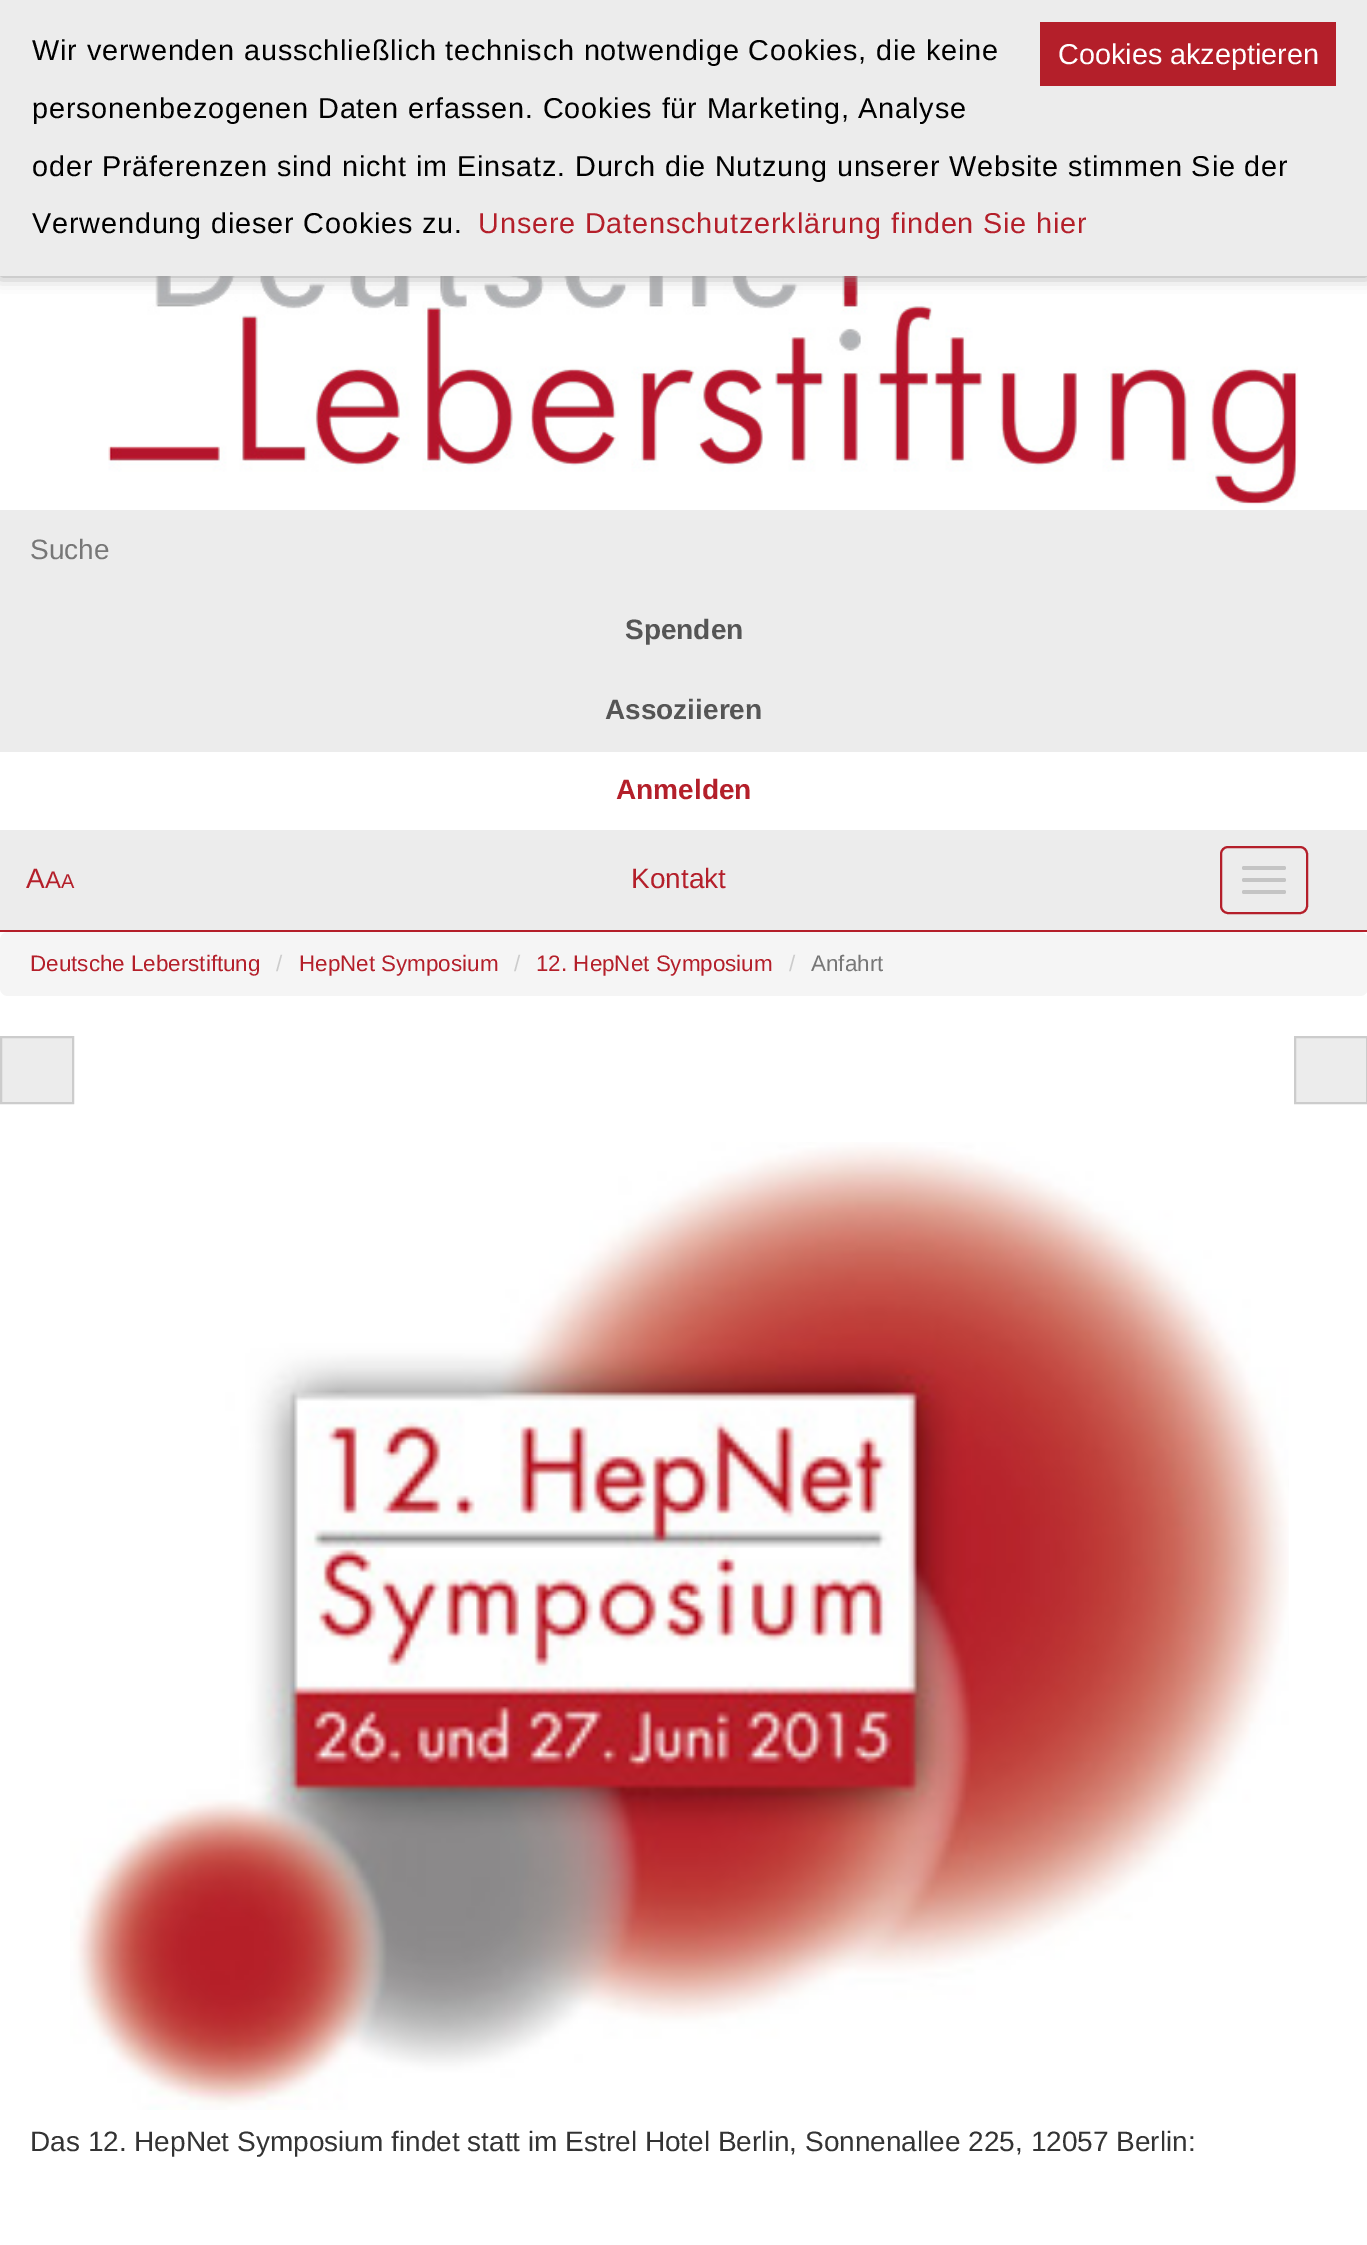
%!PS
<< /PageSize [1367 2245] /PageUsesTransparency true >> setpagedevice
/alpha { dup .setfillconstantalpha .setstrokeconstantalpha } def
/roundrect { 5 dict begin { /r /h /w /y /x } { exch def } forall
  x r add y moveto x w add y 2 copy h add r arct x w add y h add x 1 index r arct
  x y h add x y r arct x y 2 copy exch w add exch r arct closepath end } def
/shadow { 12 dict begin { /a /b /q /h /w /y /x } { exch def } forall gsave /was 0 def
  9 -2 -9 { dup b mul 4 div /e exch def 1 sub .425 mul 2.718 exch exp 1 add a .99 .min exch div /now exch def
    1 1 now sub 1 was sub div sub alpha /was now def
    w h .min e 2 mul add 0 gt { x e sub y e sub w e 2 mul add h e 2 mul add
      q e add b .6 mul add w h .min 2 div e add .min 0 .max roundrect fill } if } for grestore end } def
/picture { 5 dict begin { /h /w /y /x /name } { exch def } forall
  gsave x y translate w h scale
  w h 8 [w 0 0 h 0 0] name (r) file false 3 colorimage grestore end } def
0 .pushpdf14devicefilter
0 2245 translate 1 -1 scale
4 setmiterlimit
1 setgray
0 0 1367 2245 rectfill
(img1.rgb) 108 276 1190 230 picture
0.604 setgray
0 0 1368 276 0 8 1 shadow
0.925 setgray
0 0 1367 276 rectfill
/LiberationSans-Regular [28.8 0 0 -28.8 0 0] selectfont
0 setgray
32 60 moveto 0.85 0 (Wir verwenden ausschließlich technisch notwendige Cookies, die keine) ashow
32 118 moveto 0.85 0 (personenbezogenen Daten erfassen. Cookies für Marketing, Analyse) ashow
32 176 moveto 0.85 0 (oder Präferenzen sind nicht im Einsatz. Durch die Nutzung unserer Website stimmen Sie der) ashow
32 233 moveto 0.85 0 (Verwendung dieser Cookies zu.) ashow
0.706 0.122 0.165 setrgbcolor
478 233 moveto 0.85 0 (Unsere Datenschutzerklärung finden Sie hier) ashow
1040 22 296 64 rectfill
1 setgray
1058 64 moveto (Cookies akzeptieren) show
0.925 setgray
0 510 1367 242 rectfill
/LiberationSans-Regular [28 0 0 -28 0 0] selectfont
0.467 setgray
30 559 moveto (Suche) show
/LiberationSans-Bold [28 0 0 -28 0 0] selectfont
0.333 setgray
625 639 moveto (Spenden) show
605 719 moveto (Assoziieren) show
0.706 0.122 0.165 setrgbcolor
616 799 moveto (Anmelden) show
0.925 setgray
0 830 1367 100 rectfill
0.706 0.122 0.165 setrgbcolor
0 930 1367 2 rectfill
/LiberationSans-Regular [28 0 0 -28 0 0] selectfont
26 888 moveto (A) show
/LiberationSans-Regular [24 0 0 -24 0 0] selectfont
45 888 moveto (A) show
/LiberationSans-Regular [20 0 0 -20 0 0] selectfont
61 888 moveto (A) show
/LiberationSans-Regular [28 0 0 -28 0 0] selectfont
631 888 moveto (Kontakt) show
2 setlinewidth
1221 847 86 66 7 roundrect stroke
0.769 setgray
1242 866 44 4 2 roundrect fill
1242 878 44 4 2 roundrect fill
1242 890 44 4 2 roundrect fill
0.961 setgray
0 932 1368 64 8 roundrect fill
/LiberationSans-Regular [22.4 0 0 -22.4 0 0] selectfont
0.706 0.122 0.165 setrgbcolor
30 971 moveto (Deutsche Leberstiftung) show
0.8 setgray
276 971 moveto (/) show
0.706 0.122 0.165 setrgbcolor
299 971 moveto (HepNet Symposium) show
0.8 setgray
514 971 moveto (/) show
0.706 0.122 0.165 setrgbcolor
536 971 moveto (12. HepNet Symposium) show
0.8 setgray
789 971 moveto (/) show
0.467 setgray
811 971 moveto (Anfahrt) show
0.925 setgray
newpath 1 1037 moveto 73 1037 lineto 73 1103 lineto 1 1103 lineto closepath gsave fill grestore
0.8 setgray
stroke
0.925 setgray
newpath 1295 1037 moveto 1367 1037 lineto 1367 1103 lineto 1295 1103 lineto closepath gsave fill grestore
0.8 setgray
stroke
(img2.rgb) 70 1142 1219 968 picture
/LiberationSans-Regular [28 0 0 -28 0 0] selectfont
0.2 setgray
30 2151 moveto (Das 12. HepNet Symposium findet statt im Estrel Hotel Berlin, Sonnenallee 225, 12057 Berlin:) show
.poppdf14devicefilter showpage
